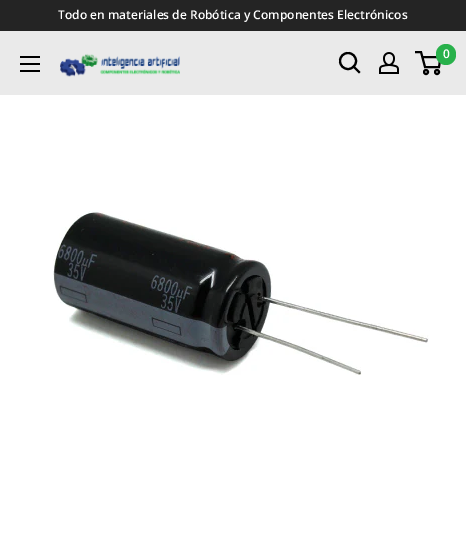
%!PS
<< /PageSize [466 536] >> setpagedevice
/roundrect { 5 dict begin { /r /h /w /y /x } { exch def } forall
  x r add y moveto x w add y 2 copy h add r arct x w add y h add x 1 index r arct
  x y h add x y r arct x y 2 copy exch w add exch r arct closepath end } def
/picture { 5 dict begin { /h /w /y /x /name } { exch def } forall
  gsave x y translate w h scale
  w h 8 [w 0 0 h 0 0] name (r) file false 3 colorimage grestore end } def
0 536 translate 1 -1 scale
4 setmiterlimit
0.141 setgray
0 0 466 536 rectfill
/OpenSans-SemiBold [12 0 0 -12 0 0] selectfont
1 setgray
58 19 moveto (Todo en materiales de Robótica y Componentes Electrónicos) show
0.918 setgray
0 31 466 64 rectfill
(img1.rgb) 20 56 20 16 picture
(img2.rgb) 60 53 120 24 picture
0 setgray
2.1 setlinewidth
2 setlinecap
newpath 359 72 moveto 353.5 66.5 lineto stroke
0 setlinecap
newpath 348 61 8 0 360 arc closepath stroke
(img3.rgb) 379 52 20 22 picture
2 setlinewidth
newpath 426 72 2 0 360 arc closepath stroke
newpath 437 72 2 0 360 arc closepath stroke
newpath 422.5 57 moveto 440.5 57 lineto 439 67 lineto 425 67 lineto 421 52 lineto 415 52 lineto stroke
0.157 0.694 0.294 setrgbcolor
436 44 20 21 10 roundrect fill
1 setgray
443 58 moveto (0) show
0 95 466 441 rectfill
(img4.rgb) 53 211 376 164 picture
showpage
